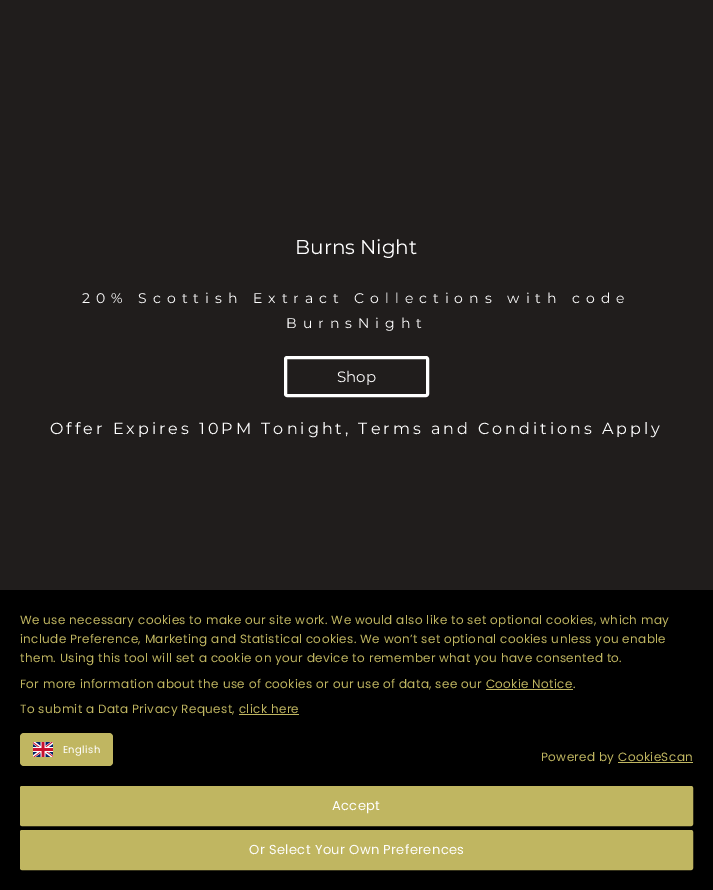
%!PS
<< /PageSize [713 890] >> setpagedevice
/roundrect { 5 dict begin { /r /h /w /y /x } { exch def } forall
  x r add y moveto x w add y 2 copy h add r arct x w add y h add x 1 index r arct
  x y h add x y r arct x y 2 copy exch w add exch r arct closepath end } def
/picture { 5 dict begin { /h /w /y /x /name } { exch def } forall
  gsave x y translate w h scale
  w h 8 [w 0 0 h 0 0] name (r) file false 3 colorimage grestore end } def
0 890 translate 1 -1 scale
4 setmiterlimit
0.125 0.114 0.11 setrgbcolor
0 0 713 890 rectfill
/Montserrat-Regular [20 0 0 -20 0 0] selectfont
1 setgray
295 254 moveto (Burns Night) show
/Montserrat-Regular [14 0 0 -14 0 0] selectfont
82 303 moveto 6 0 (20% Scottish Extract Collections with code) ashow
286 328 moveto 6 0 (BurnsNight) ashow
3 setlinewidth
285.5 357.5 142 38 1.5 roundrect stroke
/Montserrat-Regular [15 0 0 -15 0 0] selectfont
337 382 moveto (Shop) show
/Montserrat-Regular [16 0 0 -16 0 0] selectfont
50 434 moveto 3 0 (Offer Expires 10PM Tonight, Terms and Conditions Apply) ashow
0 setgray
0 590 713 300 rectfill
/Poppins-Regular [12 0 0 -12 0 0] selectfont
0.753 0.714 0.38 setrgbcolor
20 624 moveto 0.36 0 (We use necessary cookies to make our site work. We would also like to set optional cookies, which may) ashow
20 643 moveto 0.36 0 (include Preference, Marketing and Statistical cookies. We won’t set optional cookies unless you enable) ashow
20 662 moveto 0.36 0 (them. Using this tool will set a cookie on your device to remember what you have consented to.) ashow
20 688 moveto 0.36 0 (For more information about the use of cookies or our use of data, see our Cookie Notice.) ashow
486 689 87 1 rectfill
20 713 moveto 0.36 0 (To submit a Data Privacy Request, click here) ashow
239 714 60 1 rectfill
20 733 93 33 4 roundrect fill
21 734 91 31 rectfill
(img1.rgb) 33 742 20 15 picture
/Poppins-Regular [10 0 0 -10 0 0] selectfont
1 setgray
63 753 moveto 0.36 0 (English) ashow
/Poppins-Regular [12 0 0 -12 0 0] selectfont
0.753 0.714 0.38 setrgbcolor
541 761 moveto 0.36 0 (Powered by CookieScan) ashow
618 762 75 1 rectfill
20.5 786.5 672 39 1.5 roundrect gsave fill grestore
1 setlinewidth
stroke
/Poppins-Regular [13 0 0 -13 0 0] selectfont
1 setgray
332 810 moveto 0.4 0 (Accept) ashow
0.753 0.714 0.38 setrgbcolor
20.5 830.5 672 39 1.5 roundrect gsave fill grestore
stroke
1 setgray
249 854 moveto 0.4 0 (Or Select Your Own Preferences) ashow
showpage
